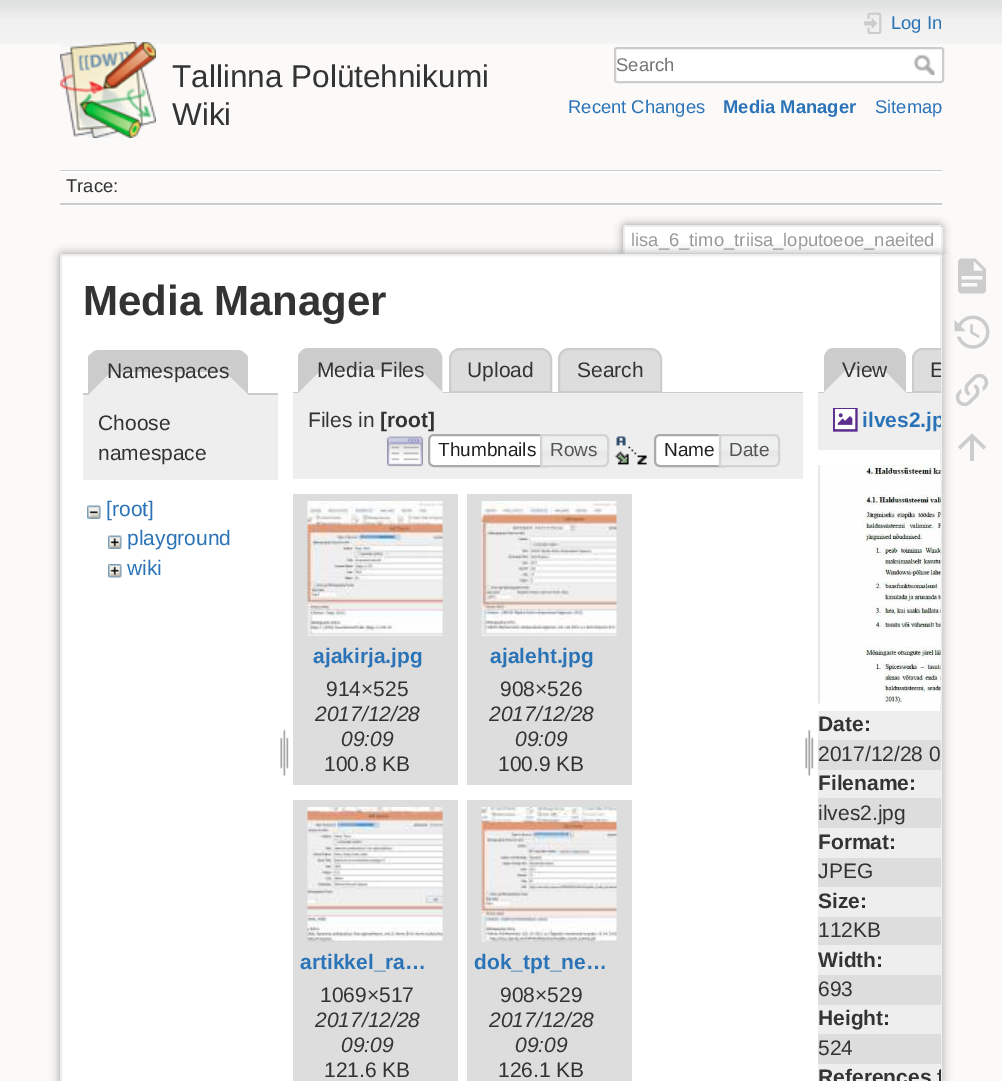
%!PS
<< /PageSize [1002 1081] /PageUsesTransparency true >> setpagedevice
/alpha { dup .setfillconstantalpha .setstrokeconstantalpha } def
/roundrect { 5 dict begin { /r /h /w /y /x } { exch def } forall
  x r add y moveto x w add y 2 copy h add r arct x w add y h add x 1 index r arct
  x y h add x y r arct x y 2 copy exch w add exch r arct closepath end } def
/shadow { 12 dict begin { /a /b /q /h /w /y /x } { exch def } forall gsave /was 0 def
  9 -2 -9 { dup b mul 4 div /e exch def 1 sub .425 mul 2.718 exch exp 1 add a .99 .min exch div /now exch def
    1 1 now sub 1 was sub div sub alpha /was now def
    w h .min e 2 mul add 0 gt { x e sub y e sub w e 2 mul add h e 2 mul add
      q e add b .6 mul add w h .min 2 div e add .min 0 .max roundrect fill } if } for grestore end } def
/picture { 5 dict begin { /h /w /y /x /name } { exch def } forall
  gsave x y translate w h scale
  w h 8 [w 0 0 h 0 0] name (r) file false 3 colorimage grestore end } def
0 .pushpdf14devicefilter
0 1081 translate 1 -1 scale
4 setmiterlimit
0.984 0.98 0.976 setrgbcolor
0 0 1002 1081 rectfill
(img1.rgb) 0 0 1002 44 picture
(img2.rgb) 60 42 96 96 picture
/LiberationSans-Regular [31.5 0 0 -31.5 0 0] selectfont
0.2 setgray
172 87 moveto (Tallinna Polütehnikumi) show
172 125 moveto (Wiki) show
(img3.rgb) 864 12 18 22 picture
/LiberationSans-Regular [18.4 0 0 -18.4 0 0] selectfont
0.169 0.451 0.718 setrgbcolor
891 29 moveto (Log In) show
1 setgray
615 48 328 34 2 roundrect gsave fill grestore
0.8 setgray
2 setlinewidth
stroke
0.459 setgray
616 71 moveto (Search) show
(img4.rgb) 913 54 22 21 picture
0.169 0.451 0.718 setrgbcolor
568 113 moveto (Recent Changes) show
/LiberationSans-Bold [18.4 0 0 -18.4 0 0] selectfont
723 113 moveto (Media Manager) show
/LiberationSans-Regular [18.4 0 0 -18.4 0 0] selectfont
875 113 moveto (Sitemap) show
0.8 setgray
60 170 882 1 rectfill
1 setgray
60 205 882 1 rectfill
60 171 882 2 rectfill
0.8 setgray
60 203 882 2 rectfill
0.2 setgray
66 192 moveto (Trace:) show
gsave
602 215 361 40 rectclip
0.6 setgray
623 225 319 30 3 4.5 1 shadow
grestore
1 setgray
newpath 625.5 227 moveto 939.5 227 lineto 940.5 227 941 227.5 941 228.5 curveto 941 255 lineto 624 255 lineto 624 228.5 lineto 624 227.5 624.5 227 625.5 227 curveto closepath fill
0.933 setgray
624 225 317 2 rectfill
941 227 2 28 rectfill
623 227 2 28 rectfill
0.6 setgray
631 246 moveto (lisa_6_timo_triisa_loputoeoe_naeited) show
60 254 882 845 3 5 1 shadow
1 setgray
61 255 880 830 2 roundrect gsave fill grestore
0.933 setgray
stroke
/LiberationSans-Bold [42 0 0 -42 0 0] selectfont
0.2 setgray
83 315 moveto (Media Manager) show
0.8 setgray
83 393 195 2 rectfill
0.933 setgray
newpath 100 350 moveto 237 350 lineto 243 350 248 355 248 361 curveto 248 395 lineto 89 395 lineto 89 361 lineto 89 355 94 350 100 350 curveto closepath fill
0.8 setgray
newpath 99 350 moveto 96 350 93 351 92 353 curveto 111 372 lineto 225 372 lineto 244 353 lineto 243 351 240 350 237 350 curveto closepath fill
newpath 248 394 moveto 225 372 lineto 244 353 lineto 246 354 247 355 248 357 curveto closepath fill
0.933 setgray
newpath 247 394 moveto 225 372 lineto 111 372 lineto 89 394 lineto closepath fill
0.8 setgray
newpath 88 357 moveto 89 355 90 354 92 353 curveto 111 372 lineto 89 394 lineto 88 394 lineto closepath fill
/LiberationSans-Regular [21 0 0 -21 0 0] selectfont
0.2 setgray
107 378 moveto (Namespaces) show
0.933 setgray
83 395 195 85 rectfill
0.2 setgray
98 430 moveto (Choose) show
98 460 moveto (namespace) show
(img5.rgb) 87 505 14 14 picture
0.169 0.451 0.718 setrgbcolor
106 516 moveto ([root]) show
(img6.rgb) 108 535 14 14 picture
127 545 moveto (playground) show
(img7.rgb) 108 564 14 14 picture
127 575 moveto (wiki) show
(img8.rgb) 280 729 9 47 picture
0.867 setgray
newpath 460 349 moveto 541 349 lineto 546.5 349 551 353.5 551 359 curveto 551 392 lineto 450 392 lineto 450 359 lineto 450 353.5 454.5 349 460 349 curveto closepath gsave fill grestore
0.8 setgray
stroke
0.867 setgray
newpath 569 349 moveto 651 349 lineto 656.5 349 661 353.5 661 359 curveto 661 392 lineto 559 392 lineto 559 359 lineto 559 353.5 563.5 349 569 349 curveto closepath gsave fill grestore
0.8 setgray
stroke
293 392 510 1 rectfill
0.933 setgray
newpath 310 348 moveto 432 348 lineto 438 348 443 353 443 359 curveto 443 393 lineto 299 393 lineto 299 359 lineto 299 353 304 348 310 348 curveto closepath fill
0.8 setgray
newpath 309 348 moveto 432 348 lineto 435 348 438 349 439 351 curveto 420 370 lineto 321 370 lineto 301 351 lineto 303 349 306 348 309 348 curveto closepath fill
newpath 439 351 moveto 420 370 lineto 442 392 lineto 442 358 lineto 442 356 441 353 439 351 curveto closepath fill
0.933 setgray
newpath 442 392 moveto 420 370 lineto 321 370 lineto 298 393 lineto 442 393 lineto closepath fill
0.8 setgray
newpath 298 393 moveto 321 370 lineto 301 351 lineto 298 355 lineto closepath fill
0.2 setgray
317 377 moveto (Media Files) show
467 377 moveto (Upload) show
577 377 moveto (Search) show
0.933 setgray
293 393 510 86 rectfill
0.2 setgray
308 427 moveto (Files in) show
/LiberationSans-Bold [21 0 0 -21 0 0] selectfont
380 427 moveto ([root]) show
(img9.rgb) 387 436 36 31 picture
1 setgray
newpath 434 434 moveto 548 434 lineto 548 467 lineto 434 467 lineto 430.5 467 428 464.5 428 461 curveto 428 440 lineto 428 436.5 430.5 434 434 434 curveto closepath fill
(img10.rgb) 427 433 120 31 picture
0.667 setgray
newpath 434 435 moveto 547 435 lineto 547 466 lineto 434 466 lineto 431 466 429 464 429 461 curveto 429 440 lineto 429 437 431 435 434 435 curveto closepath stroke
/LiberationSans-Regular [19 0 0 -19 0 0] selectfont
0.129 setgray
438 456 moveto (Thumbnails) show
(img11.rgb) 542 434 67 32 picture
0.827 setgray
newpath 541 435 moveto 603 435 lineto 606 435 608 437 608 440 curveto 608 461 lineto 608 464 606 466 603 466 curveto 541 466 lineto closepath stroke
0.333 setgray
550 456 moveto (Rows) show
(img12.rgb) 614 436 33 29 picture
1 setgray
newpath 660 434 moveto 726 434 lineto 726 467 lineto 660 467 lineto 656.5 467 654 464.5 654 461 curveto 654 440 lineto 654 436.5 656.5 434 660 434 curveto closepath fill
(img13.rgb) 654 433 72 5 picture
0.667 setgray
newpath 660 435 moveto 725 435 lineto 725 466 lineto 660 466 lineto 657 466 655 464 655 461 curveto 655 440 lineto 655 437 657 435 660 435 curveto closepath stroke
0.129 setgray
664 456 moveto (Name) show
(img14.rgb) 718 434 62 33 picture
0.827 setgray
newpath 720 435 moveto 774 435 lineto 777 435 779 437 779 440 curveto 779 461 lineto 779 464 777 466 774 466 curveto 720 466 lineto closepath stroke
0.333 setgray
729 456 moveto (Date) show
0.867 setgray
293 494 165 291 rectfill
(img15.rgb) 307 501 136 135 picture
/LiberationSans-Bold [21 0 0 -21 0 0] selectfont
0.169 0.451 0.718 setrgbcolor
313 663 moveto (ajakirja.jpg) show
/LiberationSans-Regular [21 0 0 -21 0 0] selectfont
0.2 setgray
326 696 moveto (914×525) show
/LiberationSans-Italic [21 0 0 -21 0 0] selectfont
315 721 moveto (2017/12/28) show
341 746 moveto (09:09) show
/LiberationSans-Regular [21 0 0 -21 0 0] selectfont
324 771 moveto (100.8 KB) show
0.867 setgray
467 494 165 291 rectfill
(img16.rgb) 481 501 136 135 picture
/LiberationSans-Bold [21 0 0 -21 0 0] selectfont
0.169 0.451 0.718 setrgbcolor
490 663 moveto (ajaleht.jpg) show
/LiberationSans-Regular [21 0 0 -21 0 0] selectfont
0.2 setgray
500 696 moveto (908×526) show
/LiberationSans-Italic [21 0 0 -21 0 0] selectfont
489 721 moveto (2017/12/28) show
515 746 moveto (09:09) show
/LiberationSans-Regular [21 0 0 -21 0 0] selectfont
498 771 moveto (100.9 KB) show
0.867 setgray
293 800 165 281 rectfill
(img17.rgb) 307 807 136 135 picture
/LiberationSans-Bold [21 0 0 -21 0 0] selectfont
0.169 0.451 0.718 setrgbcolor
300 969 moveto (artikkel_ra…) show
/LiberationSans-Regular [21 0 0 -21 0 0] selectfont
0.2 setgray
320 1002 moveto (1069×517) show
/LiberationSans-Italic [21 0 0 -21 0 0] selectfont
315 1027 moveto (2017/12/28) show
341 1052 moveto (09:09) show
/LiberationSans-Regular [21 0 0 -21 0 0] selectfont
324 1077 moveto (121.6 KB) show
0.867 setgray
467 800 165 281 rectfill
(img18.rgb) 481 807 136 135 picture
/LiberationSans-Bold [21 0 0 -21 0 0] selectfont
0.169 0.451 0.718 setrgbcolor
474 969 moveto (dok_tpt_ne…) show
/LiberationSans-Regular [21 0 0 -21 0 0] selectfont
0.2 setgray
500 1002 moveto (908×529) show
/LiberationSans-Italic [21 0 0 -21 0 0] selectfont
489 1027 moveto (2017/12/28) show
515 1052 moveto (09:09) show
/LiberationSans-Regular [21 0 0 -21 0 0] selectfont
498 1077 moveto (126.1 KB) show
(img19.rgb) 805 729 9 47 picture
0.8 setgray
818 392 94 1 rectfill
0.933 setgray
newpath 835 348 moveto 895 348 lineto 901 348 906 353 906 359 curveto 906 393 lineto 824 393 lineto 824 359 lineto 824 353 829 348 835 348 curveto closepath fill
0.8 setgray
newpath 834 348 moveto 896 348 lineto 898 348 901 349 903 351 curveto 884 370 lineto 846 370 lineto 827 351 lineto 828 349 831 348 834 348 curveto closepath fill
newpath 903 351 moveto 884 370 lineto 906 393 lineto 906 358 lineto 906 356 905 353 903 351 curveto closepath fill
0.933 setgray
newpath 906 393 moveto 824 393 lineto 846 370 lineto 884 370 lineto closepath fill
0.8 setgray
newpath 827 351 moveto 825 353 824 356 824 358 curveto 824 392 lineto 846 370 lineto closepath fill
0.2 setgray
842 377 moveto (View) show
0.867 setgray
newpath 923 348 moveto 941 348 lineto 941 393 lineto 912 393 lineto 912 359 lineto 912 353 917 348 923 348 curveto closepath fill
0.8 setgray
newpath 923 348 moveto 917 348 912 353 912 359 curveto 912 393 lineto 941 393 lineto 941 391 lineto 914 391 lineto 914 359 lineto 914 354 918 350 923 350 curveto 941 350 lineto 941 348 lineto closepath fill
gsave
62 255 879 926 1.5 roundrect clip newpath
0.2 setgray
930 377 moveto (E) show
grestore
0.933 setgray
818 393 122 57 rectfill
(img20.rgb) 833 408 25 24 picture
gsave
62 255 879 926 1.5 roundrect clip newpath
/LiberationSans-Bold [21 0 0 -21 0 0] selectfont
0.169 0.451 0.718 setrgbcolor
862 427 moveto (ilves2.jp) show
grestore
(img21.rgb) 817 465 124 239 picture
818 711 122 29 rectfill
/LiberationSans-Bold [21 0 0 -21 0 0] selectfont
0.2 setgray
818 731 moveto (Date:) show
0.867 setgray
818 740 123 30 rectfill
/LiberationSans-Regular [21 0 0 -21 0 0] selectfont
0.2 setgray
818 761 moveto (2017/12/28 0) show
0.933 setgray
818 770 122 28 rectfill
/LiberationSans-Bold [21 0 0 -21 0 0] selectfont
0.2 setgray
818 790 moveto (Filename:) show
0.867 setgray
818 798 123 30 rectfill
/LiberationSans-Regular [21 0 0 -21 0 0] selectfont
0.2 setgray
818 820 moveto (ilves2.jpg) show
0.933 setgray
818 828 122 30 rectfill
/LiberationSans-Bold [21 0 0 -21 0 0] selectfont
0.2 setgray
818 849 moveto (Format:) show
0.867 setgray
818 858 123 29 rectfill
/LiberationSans-Regular [21 0 0 -21 0 0] selectfont
0.2 setgray
818 878 moveto (JPEG) show
0.933 setgray
818 887 122 30 rectfill
/LiberationSans-Bold [21 0 0 -21 0 0] selectfont
0.2 setgray
818 908 moveto (Size:) show
0.867 setgray
818 917 123 28 rectfill
/LiberationSans-Regular [21 0 0 -21 0 0] selectfont
0.2 setgray
818 937 moveto (112KB) show
0.933 setgray
818 945 122 30 rectfill
/LiberationSans-Bold [21 0 0 -21 0 0] selectfont
0.2 setgray
818 967 moveto (Width:) show
0.867 setgray
818 975 123 30 rectfill
/LiberationSans-Regular [21 0 0 -21 0 0] selectfont
0.2 setgray
818 996 moveto (693) show
0.933 setgray
818 1005 122 29 rectfill
/LiberationSans-Bold [21 0 0 -21 0 0] selectfont
0.2 setgray
818 1025 moveto (Height:) show
0.867 setgray
818 1034 123 30 rectfill
/LiberationSans-Regular [21 0 0 -21 0 0] selectfont
0.2 setgray
818 1055 moveto (524) show
0.933 setgray
818 1064 122 17 rectfill
gsave
62 255 879 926 1.5 roundrect clip newpath
/LiberationSans-Bold [21 0 0 -21 0 0] selectfont
0.2 setgray
818 1084 moveto (References f) show
grestore
(img22.rgb) 958 258 28 36 picture
(img23.rgb) 954 315 36 34 picture
(img24.rgb) 955 373 34 34 picture
0.8 setgray
newpath 974 461 moveto 970 461 lineto 970 440 lineto 960.5 449.5 lineto 958 447 lineto 972 433.5 lineto 986 447 lineto 983.5 449.5 lineto 974 440 lineto closepath fill
.poppdf14devicefilter showpage
